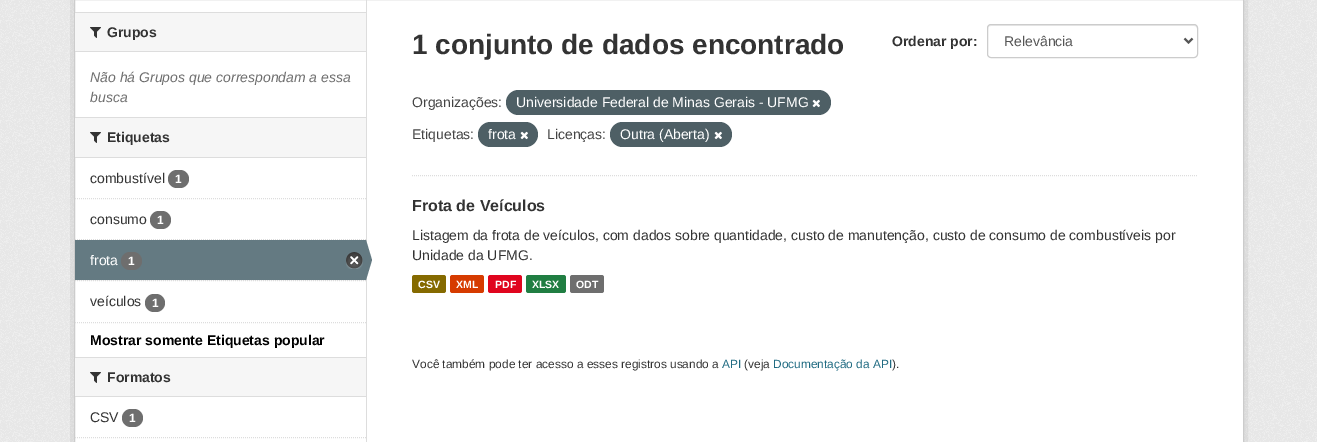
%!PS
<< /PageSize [1317 442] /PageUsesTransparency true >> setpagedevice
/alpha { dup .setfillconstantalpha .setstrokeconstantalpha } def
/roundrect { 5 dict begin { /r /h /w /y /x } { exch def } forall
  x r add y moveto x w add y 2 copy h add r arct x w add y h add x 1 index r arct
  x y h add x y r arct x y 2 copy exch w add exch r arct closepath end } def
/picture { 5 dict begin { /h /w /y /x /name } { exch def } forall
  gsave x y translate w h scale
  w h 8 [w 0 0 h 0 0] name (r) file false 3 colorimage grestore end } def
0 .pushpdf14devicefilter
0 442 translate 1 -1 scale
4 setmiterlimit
0.933 setgray
0 0 1317 442 rectfill
(img1.rgb) 0 0 1317 442 picture
0.05 alpha
0 setgray
4 setlinewidth
72 -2 1174 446 rectstroke
1 alpha
1 setgray
newpath 74.5 -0.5 moveto 1243.5 -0.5 lineto 1243.5 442.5 lineto 74.5 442.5 lineto closepath gsave fill grestore
0.8 setgray
1 setlinewidth
stroke
0.965 setgray
75 13 291 38 rectfill
0.867 setgray
75 12 291 1 rectfill
75 51 291 1 rectfill
(img2.rgb) 90 27 11 11 picture
/LiberationSans-Bold [14 0 0 -14 0 0] selectfont
0.2 setgray
107 37 moveto (Grupos) show
/LiberationSans-Italic [14 0 0 -14 0 0] selectfont
0.431 setgray
90 82 moveto (Não há Grupos que correspondam a essa) show
90 102 moveto (busca) show
0.965 setgray
75 118 291 39 rectfill
0.867 setgray
75 117 291 1 rectfill
75 157 291 1 rectfill
(img2.rgb) 90 132 11 11 picture
/LiberationSans-Bold [14 0 0 -14 0 0] selectfont
0.2 setgray
107 142 moveto (Etiquetas) show
0.867 setgray
[1 1] 0 setdash
newpath 75 198.5 moveto 366 198.5 lineto stroke
/LiberationSans-Regular [14 0 0 -14 0 0] selectfont
0.2 setgray
90 183 moveto (combustível) show
0.431 setgray
168 170 21 18 9 roundrect fill
/LiberationSans-Bold [12 0 0 -12 0 0] selectfont
1 setgray
175 183 moveto (1) show
0.867 setgray
newpath 75 239.5 moveto 366 239.5 lineto stroke
/LiberationSans-Regular [14 0 0 -14 0 0] selectfont
0.2 setgray
90 224 moveto (consumo) show
0.431 setgray
150 211 21 18 9 roundrect fill
/LiberationSans-Bold [12 0 0 -12 0 0] selectfont
1 setgray
157 224 moveto (1) show
0.965 setgray
76 280 289 1 rectfill
0.867 setgray
newpath 75 280.5 moveto 366 280.5 lineto stroke
0.392 0.478 0.51 setrgbcolor
75 240 291 40 rectfill
/LiberationSans-Regular [14 0 0 -14 0 0] selectfont
1 setgray
90 265 moveto (frota) show
0.431 setgray
121 252 21 18 9 roundrect fill
/LiberationSans-Bold [12 0 0 -12 0 0] selectfont
1 setgray
128 265 moveto (1) show
(img3.rgb) 346 252 17 17 picture
0.867 setgray
366 0 1 442 rectfill
0.392 0.478 0.51 setrgbcolor
newpath 366 280 moveto 366 240 lineto 372 260 lineto closepath fill
/LiberationSans-Regular [14 0 0 -14 0 0] selectfont
0.2 setgray
90 306 moveto (veículos) show
0.431 setgray
145 294 20 18 9 roundrect fill
/LiberationSans-Bold [12 0 0 -12 0 0] selectfont
1 setgray
152 307 moveto (1) show
0.867 setgray
newpath 75 322.5 moveto 366 322.5 lineto stroke
/LiberationSans-Bold [14 0 0 -14 0 0] selectfont
0 setgray
90 345 moveto (Mostrar somente Etiquetas popular) show
0.965 setgray
75 358 291 38 rectfill
0.867 setgray
75 357 291 1 rectfill
75 396 291 1 rectfill
(img2.rgb) 90 372 11 11 picture
0.2 setgray
107 382 moveto (Formatos) show
0.867 setgray
newpath 75 437.5 moveto 366 437.5 lineto stroke
/LiberationSans-Regular [14 0 0 -14 0 0] selectfont
0.2 setgray
90 422 moveto (CSV) show
0.431 setgray
122 409 21 18 9 roundrect fill
/LiberationSans-Bold [12 0 0 -12 0 0] selectfont
1 setgray
129 422 moveto (1) show
0.867 setgray
newpath 412 175.5 moveto 1198 175.5 lineto stroke
/LiberationSans-Bold [28 0 0 -28 0 0] selectfont
0.2 setgray
412 54 moveto (1 conjunto de dados encontrado) show
/LiberationSans-Bold [14 0 0 -14 0 0] selectfont
892 46 moveto (Ordenar por:) show
0.925 setgray
newpath 991 26 moveto 1194 26 lineto 1196 26 1197 27 1197 29 curveto 1197 28 lineto 1197 26 1196 25 1194 25 curveto 991 25 lineto 989 25 988 26 988 28 curveto 988 29 lineto 988 27 989 26 991 26 curveto closepath fill
0.8 setgray
[] 0 setdash
987.5 24.5 210 33 3.5 roundrect stroke
0.333 setgray
2 setlinewidth
newpath 1184.5 38.5 moveto 1188.5 42.5 lineto 1192.5 38.5 lineto stroke
/LiberationSans-Regular [14 0 0 -14 0 0] selectfont
1004 46 moveto (Relevância) show
0.267 setgray
412 107 moveto (Organizações:) show
0.306 0.373 0.396 setrgbcolor
506 90 325 25 12.5 roundrect fill
1 setgray
516 107 moveto (Universidade Federal de Minas Gerais - UFMG) show
(img4.rgb) 812 99 8 9 picture
0.267 setgray
412 139 moveto (Etiquetas:) show
0.306 0.373 0.396 setrgbcolor
478 122 60 25 12.5 roundrect fill
1 setgray
488 139 moveto (frota) show
(img4.rgb) 520 131 8 9 picture
0.267 setgray
547 139 moveto (Licenças:) show
0.306 0.373 0.396 setrgbcolor
610 122 122 25 12.5 roundrect fill
1 setgray
620 139 moveto (Outra \(Aberta\)) show
(img4.rgb) 714 131 8 9 picture
/LiberationSans-Bold [16 0 0 -16 0 0] selectfont
0.2 setgray
412 211 moveto (Frota de Veículos) show
/LiberationSans-Regular [14 0 0 -14 0 0] selectfont
412 240 moveto (Listagem da frota de veículos, com dados sobre quantidade, custo de manutenção, custo de consumo de combustíveis por) show
412 260 moveto (Unidade da UFMG.) show
0.522 0.416 0 setrgbcolor
412 275 34 18 2.5 roundrect fill
/LiberationSans-Bold [10.5 0 0 -10.5 0 0] selectfont
1 setgray
418 288 moveto (CSV) show
0.839 0.231 0 setrgbcolor
450 275 34 18 2.5 roundrect fill
1 setgray
456 288 moveto (XML) show
0.878 0.02 0.118 setrgbcolor
488 275 34 18 2.5 roundrect fill
1 setgray
495 288 moveto (PDF) show
0.125 0.494 0.259 setrgbcolor
526 275 40 18 2.5 roundrect fill
1 setgray
532 288 moveto (XLSX) show
0.431 setgray
570 275 34 18 2.5 roundrect fill
1 setgray
576 288 moveto (ODT) show
/LiberationSans-Regular [11.9 0 0 -11.9 0 0] selectfont
0.2 setgray
412 368 moveto (Você também pode ter acesso a esses registros usando a) show
0.125 0.42 0.51 setrgbcolor
722 368 moveto (API) show
0.2 setgray
744 368 moveto (\(veja) show
0.125 0.42 0.51 setrgbcolor
773 368 moveto (Documentação da API) show
0.2 setgray
892 368 moveto (\).) show
.poppdf14devicefilter showpage
